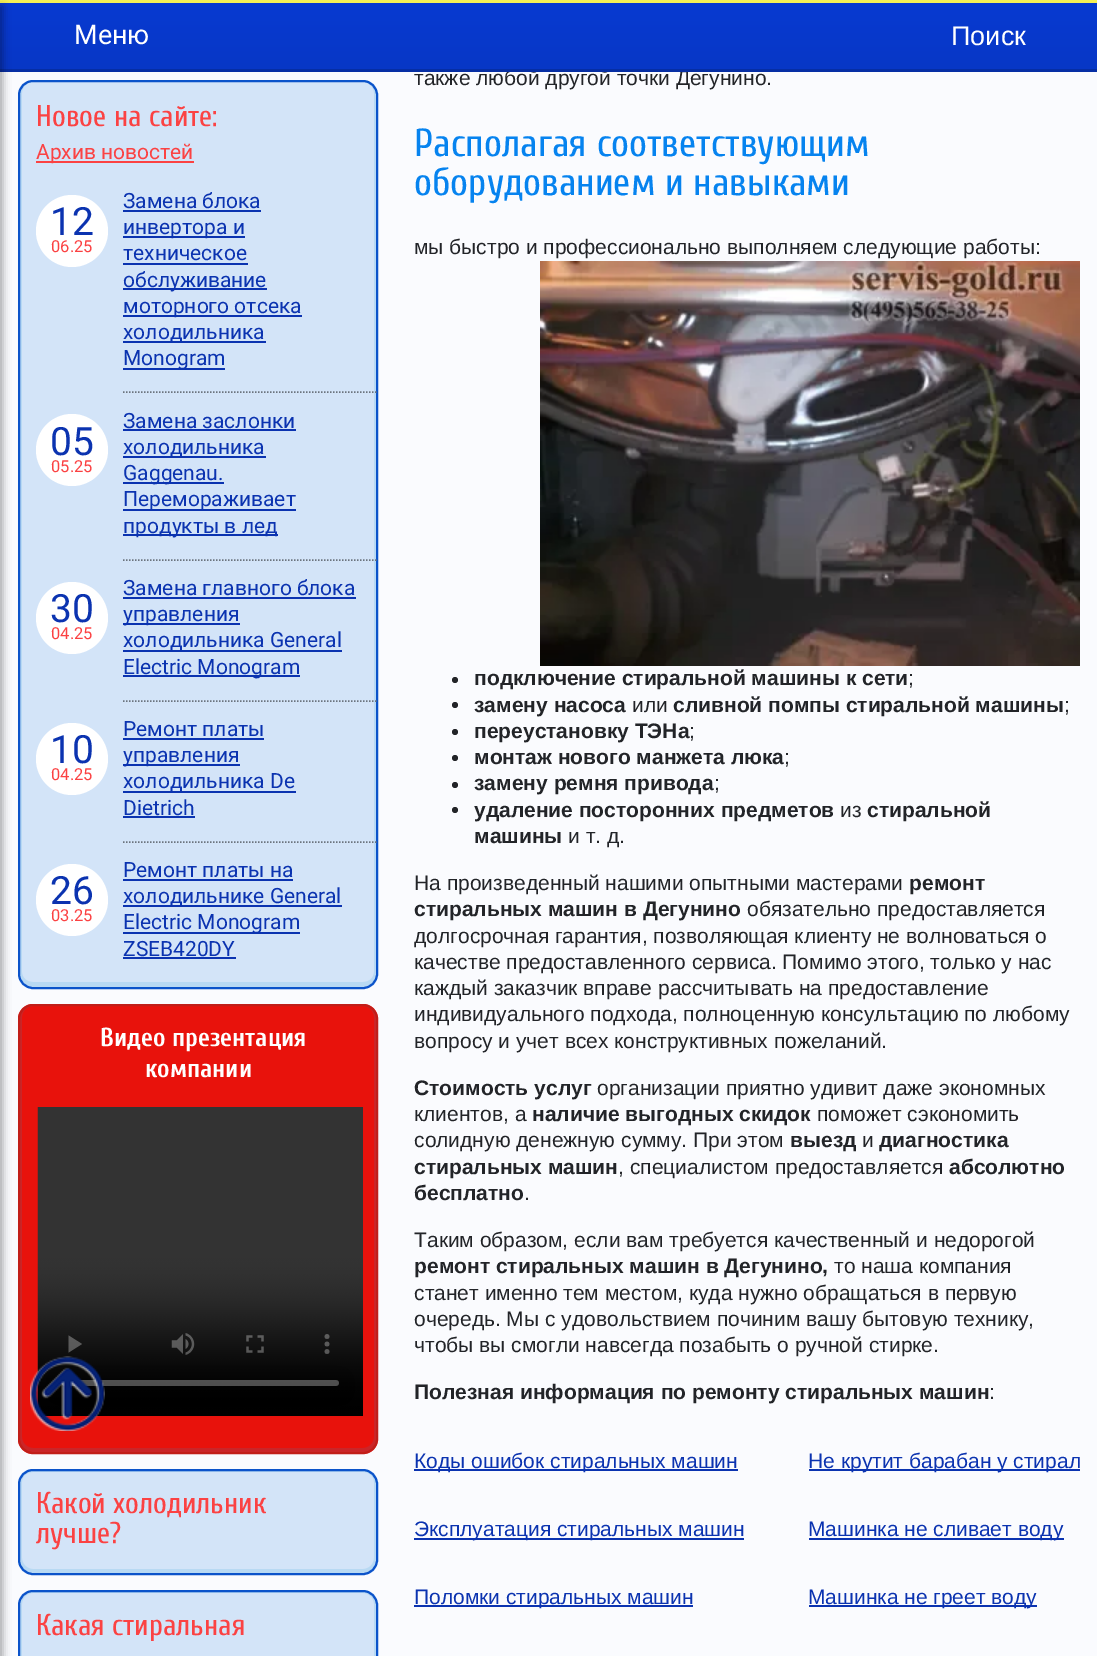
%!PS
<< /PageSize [1097 1656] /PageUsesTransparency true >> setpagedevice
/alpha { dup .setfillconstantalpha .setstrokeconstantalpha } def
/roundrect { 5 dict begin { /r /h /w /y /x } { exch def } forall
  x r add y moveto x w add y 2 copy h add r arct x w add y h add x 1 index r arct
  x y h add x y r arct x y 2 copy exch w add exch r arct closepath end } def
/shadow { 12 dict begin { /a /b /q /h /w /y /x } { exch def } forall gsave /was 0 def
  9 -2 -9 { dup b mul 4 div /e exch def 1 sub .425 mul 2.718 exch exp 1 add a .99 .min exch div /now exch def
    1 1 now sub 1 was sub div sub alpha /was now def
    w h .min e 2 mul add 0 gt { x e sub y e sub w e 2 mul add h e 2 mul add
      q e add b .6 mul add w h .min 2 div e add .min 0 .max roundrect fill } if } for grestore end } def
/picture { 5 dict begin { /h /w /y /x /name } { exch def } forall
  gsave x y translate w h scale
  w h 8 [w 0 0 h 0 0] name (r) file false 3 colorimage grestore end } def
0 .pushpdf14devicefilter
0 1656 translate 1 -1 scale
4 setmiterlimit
0.98 0.984 0.996 setrgbcolor
0 0 1097 1656 rectfill
gsave newpath 0 3 moveto 1097 3 lineto 1097 69 lineto 0 69 lineto closepath clip newpath
<< /ShadingType 2 /ColorSpace /DeviceRGB /Coords [549 0 549 72] /Extend [true true] /Function << /FunctionType 2 /Domain [0 1] /C0 [0.027 0.227 0.82] /C1 [0.027 0.216 0.773] /N 1 >> >> shfill grestore
/LiberationSans-Regular [21 0 0 -21 0 0] selectfont
0.133 0.141 0.157 setrgbcolor
414 85 moveto (также любой другой точки Дегунино.) show
0.024 0.18 0.643 setrgbcolor
0 69 1097 3 rectfill
0.965 0.945 0.329 setrgbcolor
0 0 1097 3 rectfill
0 setgray
-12 6 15 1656 0 4 0.34 shadow
/Roboto-Regular [27 0 0 -27 0 0] selectfont
1 setgray
74 44 moveto (Меню) show
/LiberationSans-Regular [27 0 0 -27 0 0] selectfont
951 45 moveto (Поиск) show
0.827 0.894 0.973 setrgbcolor
18 80 360 909 15 roundrect fill
0.722 0.851 0.953 setrgbcolor
newpath 34 81 moveto 26 81 20 87 20 95 curveto 20 973 lineto 20 981 26 987 34 987 curveto 363 987 lineto 371 987 377 981 377 973 curveto 377 95 lineto 377 87 371 81 363 81 curveto closepath 33 82 moveto 27 82 22 87 22 93 curveto 22 972 lineto 22 978 27 982 33 982 curveto 363 982 lineto 369 982 374 978 374 972 curveto 374 93 lineto 374 87 369 82 363 82 curveto closepath eofill
0.043 0.325 0.792 setrgbcolor
2 setlinewidth
19 81 358 907 14 roundrect stroke
/Cuprum-Regular [30 0 0 -30 0 0] selectfont
0.984 0.259 0.263 setrgbcolor
36 126 moveto (Новое на сайте:) show
36 161 158 2 rectfill
/Roboto-Regular [21 0 0 -21 0 0] selectfont
36 159 moveto (Архив новостей) show
1 setgray
newpath 72 231 36 0 360 arc closepath fill
/Roboto-Regular [39 0 0 -39 0 0] selectfont
0.043 0.2 0.69 setrgbcolor
50 235 moveto (12) show
/Roboto-Regular [16.5 0 0 -16.5 0 0] selectfont
0.984 0.259 0.263 setrgbcolor
51 252 moveto (06.25) show
/Roboto-Regular [21 0 0 -21 0 0] selectfont
0.043 0.2 0.69 setrgbcolor
123 208 moveto (Замена блока) show
123 210 138 2 rectfill
123 236 122 2 rectfill
123 234 moveto (инвертора и) show
123 260 moveto (техническое) show
123 263 125 2 rectfill
123 288 144 2 rectfill
123 287 moveto (обслуживание) show
123 315 179 2 rectfill
123 313 moveto (моторного отсека) show
123 341 143 2 rectfill
123 339 moveto (холодильника) show
123 368 102 2 rectfill
123 365 moveto (Monogram) show
0.42 0.455 0.494 setrgbcolor
1.5 setlinewidth
[1.5 1.5] 0 setdash
newpath 123 392 moveto 376.5 392 lineto stroke
1 setgray
newpath 72 450 36 0 360 arc closepath fill
/Roboto-Regular [39 0 0 -39 0 0] selectfont
0.043 0.2 0.69 setrgbcolor
50 455 moveto (05) show
/Roboto-Regular [16.5 0 0 -16.5 0 0] selectfont
0.984 0.259 0.263 setrgbcolor
51 472 moveto (05.25) show
/Roboto-Regular [21 0 0 -21 0 0] selectfont
0.043 0.2 0.69 setrgbcolor
123 428 moveto (Замена заслонки) show
123 429 173 2 rectfill
123 456 143 2 rectfill
123 454 moveto (холодильника) show
123 482 101 2 rectfill
123 480 moveto (Gaggenau.) show
123 509 173 2 rectfill
123 506 moveto (Перемораживает) show
123 534 155 2 rectfill
123 533 moveto (продукты в лед) show
0.42 0.455 0.494 setrgbcolor
newpath 123 560 moveto 376.5 560 lineto stroke
1 setgray
newpath 72 618 36 0 360 arc closepath fill
/Roboto-Regular [39 0 0 -39 0 0] selectfont
0.043 0.2 0.69 setrgbcolor
50 622 moveto (30) show
/Roboto-Regular [16.5 0 0 -16.5 0 0] selectfont
0.984 0.259 0.263 setrgbcolor
51 639 moveto (04.25) show
/Roboto-Regular [21 0 0 -21 0 0] selectfont
0.043 0.2 0.69 setrgbcolor
123 595 moveto (Замена главного блока) show
123 597 233 2 rectfill
123 623 117 2 rectfill
123 621 moveto (управления) show
123 650 219 2 rectfill
123 647 moveto (холодильника General) show
123 675 177 2 rectfill
123 674 moveto (Electric Monogram) show
0.42 0.455 0.494 setrgbcolor
newpath 123 701 moveto 376.5 701 lineto stroke
1 setgray
newpath 72 759 36 0 360 arc closepath fill
/Roboto-Regular [39 0 0 -39 0 0] selectfont
0.043 0.2 0.69 setrgbcolor
50 763 moveto (10) show
/Roboto-Regular [16.5 0 0 -16.5 0 0] selectfont
0.984 0.259 0.263 setrgbcolor
51 780 moveto (04.25) show
/Roboto-Regular [21 0 0 -21 0 0] selectfont
0.043 0.2 0.69 setrgbcolor
123 736 moveto (Ремонт платы) show
123 738 141 2 rectfill
123 764 117 2 rectfill
123 762 moveto (управления) show
123 791 173 2 rectfill
123 788 moveto (холодильника De) show
123 815 moveto (Dietrich) show
123 816 72 2 rectfill
0.42 0.455 0.494 setrgbcolor
newpath 123 842 moveto 376.5 842 lineto stroke
1 setgray
newpath 72 900 36 0 360 arc closepath fill
/Roboto-Regular [39 0 0 -39 0 0] selectfont
0.043 0.2 0.69 setrgbcolor
50 904 moveto (26) show
/Roboto-Regular [16.5 0 0 -16.5 0 0] selectfont
0.984 0.259 0.263 setrgbcolor
51 921 moveto (03.25) show
/Roboto-Regular [21 0 0 -21 0 0] selectfont
0.043 0.2 0.69 setrgbcolor
123 877 moveto (Ремонт платы на) show
123 879 170 2 rectfill
123 905 219 2 rectfill
123 903 moveto (холодильнике General) show
123 932 177 2 rectfill
123 929 moveto (Electric Monogram) show
123 956 moveto (ZSEB420DY) show
123 957 113 2 rectfill
0.91 0.071 0.047 setrgbcolor
18 1004 360 450 15 roundrect fill
0.792 0.145 0.157 setrgbcolor
newpath 34 1005 moveto 26 1005 20 1011 20 1019 curveto 20 1438 lineto 20 1446 26 1452 34 1452 curveto 363 1452 lineto 371 1452 377 1446 377 1438 curveto 377 1019 lineto 377 1011 371 1005 363 1005 curveto closepath 33 1006 moveto 27 1006 22 1011 22 1017 curveto 22 1437 lineto 22 1443 27 1448 33 1448 curveto 363 1448 lineto 369 1448 374 1443 374 1437 curveto 374 1017 lineto 374 1011 369 1006 363 1006 curveto closepath eofill
0.757 0.118 0.098 setrgbcolor
2 setlinewidth
[] 0 setdash
19 1005 358 448 14 roundrect stroke
/Cuprum-Bold [26 0 0 -26 0 0] selectfont
1 setgray
100 1046 moveto (Видео презентация) show
145 1077 moveto (компании) show
(img1.rgb) 37 1107 326 309 picture
0.827 0.894 0.973 setrgbcolor
18 1469 360 106 15 roundrect fill
0.722 0.851 0.953 setrgbcolor
newpath 34 1470 moveto 26 1470 20 1476 20 1484 curveto 20 1560 lineto 20 1568 26 1574 34 1574 curveto 363 1574 lineto 371 1574 377 1568 377 1560 curveto 377 1484 lineto 377 1476 371 1470 363 1470 curveto closepath 33 1472 moveto 27 1472 22 1476 22 1482 curveto 22 1558 lineto 22 1564 27 1569 33 1569 curveto 363 1569 lineto 369 1569 374 1564 374 1558 curveto 374 1482 lineto 374 1476 369 1472 363 1472 curveto closepath eofill
0.043 0.325 0.792 setrgbcolor
19 1470 358 104 14 roundrect stroke
/Cuprum-Regular [30 0 0 -30 0 0] selectfont
0.984 0.259 0.263 setrgbcolor
36 1513 moveto (Какой холодильник) show
36 1543 moveto (лучше?) show
0.827 0.894 0.973 setrgbcolor
18 1590 360 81 15 roundrect fill
0.722 0.851 0.953 setrgbcolor
newpath 34 1592 moveto 26 1592 20 1598 20 1606 curveto 20 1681 lineto 20 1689 26 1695 34 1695 curveto 363 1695 lineto 371 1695 377 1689 377 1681 curveto 377 1606 lineto 377 1598 371 1592 363 1592 curveto closepath 33 1593 moveto 27 1593 22 1598 22 1604 curveto 22 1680 lineto 22 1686 27 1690 33 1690 curveto 363 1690 lineto 369 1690 374 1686 374 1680 curveto 374 1604 lineto 374 1598 369 1593 363 1593 curveto closepath eofill
0.043 0.325 0.792 setrgbcolor
19 1591 358 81 14 roundrect stroke
0.984 0.259 0.263 setrgbcolor
36 1635 moveto (Какая стиральная) show
/Cuprum-Regular [39 0 0 -39 0 0] selectfont
0.024 0.514 0.937 setrgbcolor
414 156 moveto (Располагая соответствующим) show
414 195 moveto (оборудованием и навыками) show
/LiberationSans-Regular [21 0 0 -21 0 0] selectfont
0.133 0.141 0.157 setrgbcolor
414 254 moveto (мы быстро и профессионально выполняем следующие работы:) show
(img2.rgb) 540 261 540 405 picture
newpath 455 680 3 0 360 arc closepath fill
/LiberationSans-Bold [21 0 0 -21 0 0] selectfont
474 685 moveto (подключение стиральной машины к сети) show
/LiberationSans-Regular [21 0 0 -21 0 0] selectfont
908 685 moveto (;) show
newpath 455 705 3 0 360 arc closepath fill
/LiberationSans-Bold [21 0 0 -21 0 0] selectfont
474 712 moveto (замену насоса) show
/LiberationSans-Regular [21 0 0 -21 0 0] selectfont
632 712 moveto (или) show
/LiberationSans-Bold [21 0 0 -21 0 0] selectfont
673 712 moveto (сливной помпы стиральной машины) show
/LiberationSans-Regular [21 0 0 -21 0 0] selectfont
1064 712 moveto (;) show
newpath 455 732 3 0 360 arc closepath fill
/LiberationSans-Bold [21 0 0 -21 0 0] selectfont
474 738 moveto (переустановку ТЭНа) show
/LiberationSans-Regular [21 0 0 -21 0 0] selectfont
689 738 moveto (;) show
newpath 455 758 3 0 360 arc closepath fill
/LiberationSans-Bold [21 0 0 -21 0 0] selectfont
474 764 moveto (монтаж нового манжета люка) show
/LiberationSans-Regular [21 0 0 -21 0 0] selectfont
784 764 moveto (;) show
newpath 455 785 3 0 360 arc closepath fill
/LiberationSans-Bold [21 0 0 -21 0 0] selectfont
474 790 moveto (замену ремня привода) show
/LiberationSans-Regular [21 0 0 -21 0 0] selectfont
714 790 moveto (;) show
newpath 455 810 3 0 360 arc closepath fill
/LiberationSans-Bold [21 0 0 -21 0 0] selectfont
474 817 moveto (удаление посторонних предметов) show
/LiberationSans-Regular [21 0 0 -21 0 0] selectfont
840 817 moveto (из) show
/LiberationSans-Bold [21 0 0 -21 0 0] selectfont
867 817 moveto (стиральной) show
474 843 moveto (машины) show
/LiberationSans-Regular [21 0 0 -21 0 0] selectfont
568 843 moveto (и т. д.) show
414 890 moveto (На произведенный нашими опытными мастерами) show
/LiberationSans-Bold [21 0 0 -21 0 0] selectfont
909 890 moveto (ремонт) show
414 916 moveto (стиральных машин в Дегунино) show
/LiberationSans-Regular [21 0 0 -21 0 0] selectfont
747 916 moveto (обязательно предоставляется) show
414 943 moveto (долгосрочная гарантия, позволяющая клиенту не волноваться о) show
414 969 moveto (качестве предоставленного сервиса. Помимо этого, только у нас) show
414 995 moveto (каждый заказчик вправе рассчитывать на предоставление) show
414 1021 moveto (индивидуального подхода, полноценную консультацию по любому) show
414 1048 moveto (вопросу и учет всех конструктивных пожеланий.) show
/LiberationSans-Bold [21 0 0 -21 0 0] selectfont
414 1095 moveto (Стоимость услуг) show
/LiberationSans-Regular [21 0 0 -21 0 0] selectfont
597 1095 moveto (организации приятно удивит даже экономных) show
414 1121 moveto (клиентов, а) show
/LiberationSans-Bold [21 0 0 -21 0 0] selectfont
532 1121 moveto (наличие выгодных скидок) show
/LiberationSans-Regular [21 0 0 -21 0 0] selectfont
817 1121 moveto (поможет сэкономить) show
414 1147 moveto (солидную денежную сумму. При этом) show
/LiberationSans-Bold [21 0 0 -21 0 0] selectfont
790 1147 moveto (выезд) show
/LiberationSans-Regular [21 0 0 -21 0 0] selectfont
862 1147 moveto (и) show
/LiberationSans-Bold [21 0 0 -21 0 0] selectfont
879 1147 moveto (диагностика) show
414 1174 moveto (стиральных машин) show
/LiberationSans-Regular [21 0 0 -21 0 0] selectfont
618 1174 moveto (, специалистом предоставляется) show
/LiberationSans-Bold [21 0 0 -21 0 0] selectfont
949 1174 moveto (абсолютно) show
414 1200 moveto (бесплатно) show
/LiberationSans-Regular [21 0 0 -21 0 0] selectfont
524 1200 moveto (.) show
414 1247 moveto (Таким образом, если вам требуется качественный и недорогой) show
/LiberationSans-Bold [21 0 0 -21 0 0] selectfont
414 1273 moveto (ремонт стиральных машин в Дегунино,) show
/LiberationSans-Regular [21 0 0 -21 0 0] selectfont
834 1273 moveto (то наша компания) show
414 1300 moveto (станет именно тем местом, куда нужно обращаться в первую) show
414 1326 moveto (очередь. Мы с удовольствием починим вашу бытовую технику,) show
414 1352 moveto (чтобы вы смогли навсегда позабыть о ручной стирке.) show
/LiberationSans-Bold [21 0 0 -21 0 0] selectfont
414 1399 moveto (Полезная информация по ремонту стиральных машин) show
/LiberationSans-Regular [21 0 0 -21 0 0] selectfont
989 1399 moveto (:) show
0.043 0.2 0.69 setrgbcolor
414 1469 324 2 rectfill
414 1468 moveto (Коды ошибок стиральных машин) show
809 1469 271 2 rectfill
808 1468 moveto (Не крутит барабан у стирал) show
414 1538 330 2 rectfill
414 1536 moveto (Эксплуатация стиральных машин) show
809 1538 255 2 rectfill
808 1536 moveto (Машинка не сливает воду) show
414 1605 279 2 rectfill
414 1604 moveto (Поломки стиральных машин) show
809 1605 228 2 rectfill
808 1604 moveto (Машинка не греет воду) show
(img3.rgb) 30 1356 75 75 picture
.poppdf14devicefilter showpage
